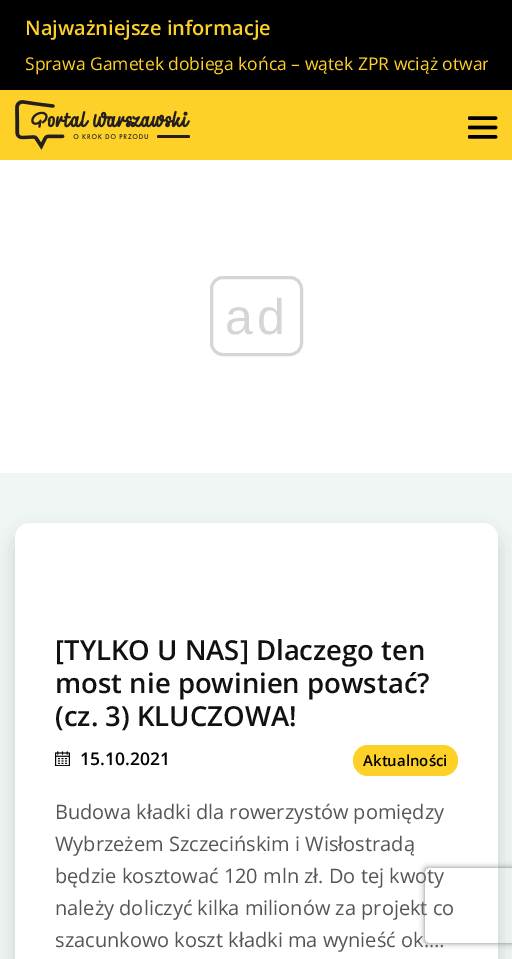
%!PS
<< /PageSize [512 959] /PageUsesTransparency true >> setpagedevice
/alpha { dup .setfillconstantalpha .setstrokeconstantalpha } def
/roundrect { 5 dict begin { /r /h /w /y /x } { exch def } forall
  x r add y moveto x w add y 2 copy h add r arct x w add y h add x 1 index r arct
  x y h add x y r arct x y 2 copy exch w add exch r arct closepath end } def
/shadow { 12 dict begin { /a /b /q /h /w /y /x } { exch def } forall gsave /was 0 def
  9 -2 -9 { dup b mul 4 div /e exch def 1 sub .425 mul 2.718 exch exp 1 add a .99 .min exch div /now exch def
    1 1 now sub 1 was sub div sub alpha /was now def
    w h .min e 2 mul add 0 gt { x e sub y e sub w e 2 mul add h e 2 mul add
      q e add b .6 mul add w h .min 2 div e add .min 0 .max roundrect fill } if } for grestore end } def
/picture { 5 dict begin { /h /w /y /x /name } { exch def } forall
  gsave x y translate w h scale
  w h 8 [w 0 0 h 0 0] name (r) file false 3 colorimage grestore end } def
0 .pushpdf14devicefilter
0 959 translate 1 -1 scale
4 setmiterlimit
1 setgray
0 0 512 959 rectfill
0 setgray
0 0 512 90 rectfill
/OpenSans-SemiBold [20 0 0 -20 0 0] selectfont
0.996 0.82 0.157 setrgbcolor
25 35 moveto (Najważniejsze informacje) show
gsave
25 45 463 35 rectclip
/OpenSans-Regular [17.5 0 0 -17.5 0 0] selectfont
25 70 moveto (Sprawa Gametek dobiega końca – wątek ZPR wciąż otwar) show
grestore
0 90 512 70 rectfill
(img1.rgb) 15 100 175 50 picture
(img2.rgb) 468 116 30 23 picture
0.835 setgray
3 setlinewidth
211.5 277.5 90 77 11.5 roundrect stroke
/LiberationSans-Regular [50 0 0 -50 0 0] selectfont
225 334 moveto 4 0 (ad) ashow
0.941 0.965 0.953 setrgbcolor
0 473 512 486 rectfill
0 setgray
15 533 483 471 15 10 0.15 shadow
1 setgray
15 523 483 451 15 roundrect fill
/OpenSans-SemiBold [27.5 0 0 -27.5 0 0] selectfont
0.067 setgray
55 660 moveto ([TYLKO U NAS] Dlaczego ten) show
55 693 moveto (most nie powinien powstać?) show
55 726 moveto (\(cz. 3\) KLUCZOWA!) show
(img3.rgb) 55 751 15 15 picture
/OpenSans-SemiBold [17.5 0 0 -17.5 0 0] selectfont
0 setgray
80 765 moveto (15.10.2021) show
0.996 0.82 0.157 setrgbcolor
353 745 105 31 15 roundrect fill
/OpenSans-SemiBold [15 0 0 -15 0 0] selectfont
0 setgray
363 766 moveto (Aktualności) show
/OpenSans-Regular [20 0 0 -20 0 0] selectfont
0.333 setgray
55 819 moveto (Budowa kładki dla rowerzystów pomiędzy) show
55 851 moveto (Wybrzeżem Szczecińskim i Wisłostradą) show
55 883 moveto (będzie kosztować 120 mln zł. Do tej kwoty) show
55 915 moveto (należy doliczyć kilka milionów za projekt co) show
55 947 moveto (szacunkowo koszt kładki ma wynieść ok.…) show
gsave
newpath 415 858 moveto 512 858 lineto 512 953 lineto 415 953 lineto closepath 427.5 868 moveto 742.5 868 lineto 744 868 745 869 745 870.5 curveto 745 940.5 lineto 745 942 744 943 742.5 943 curveto 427.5 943 lineto 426 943 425 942 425 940.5 curveto 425 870.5 lineto 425 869 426 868 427.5 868 curveto closepath eoclip newpath
0.502 setgray
425 868 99 75 2.5 3 1 shadow
grestore
.poppdf14devicefilter showpage
